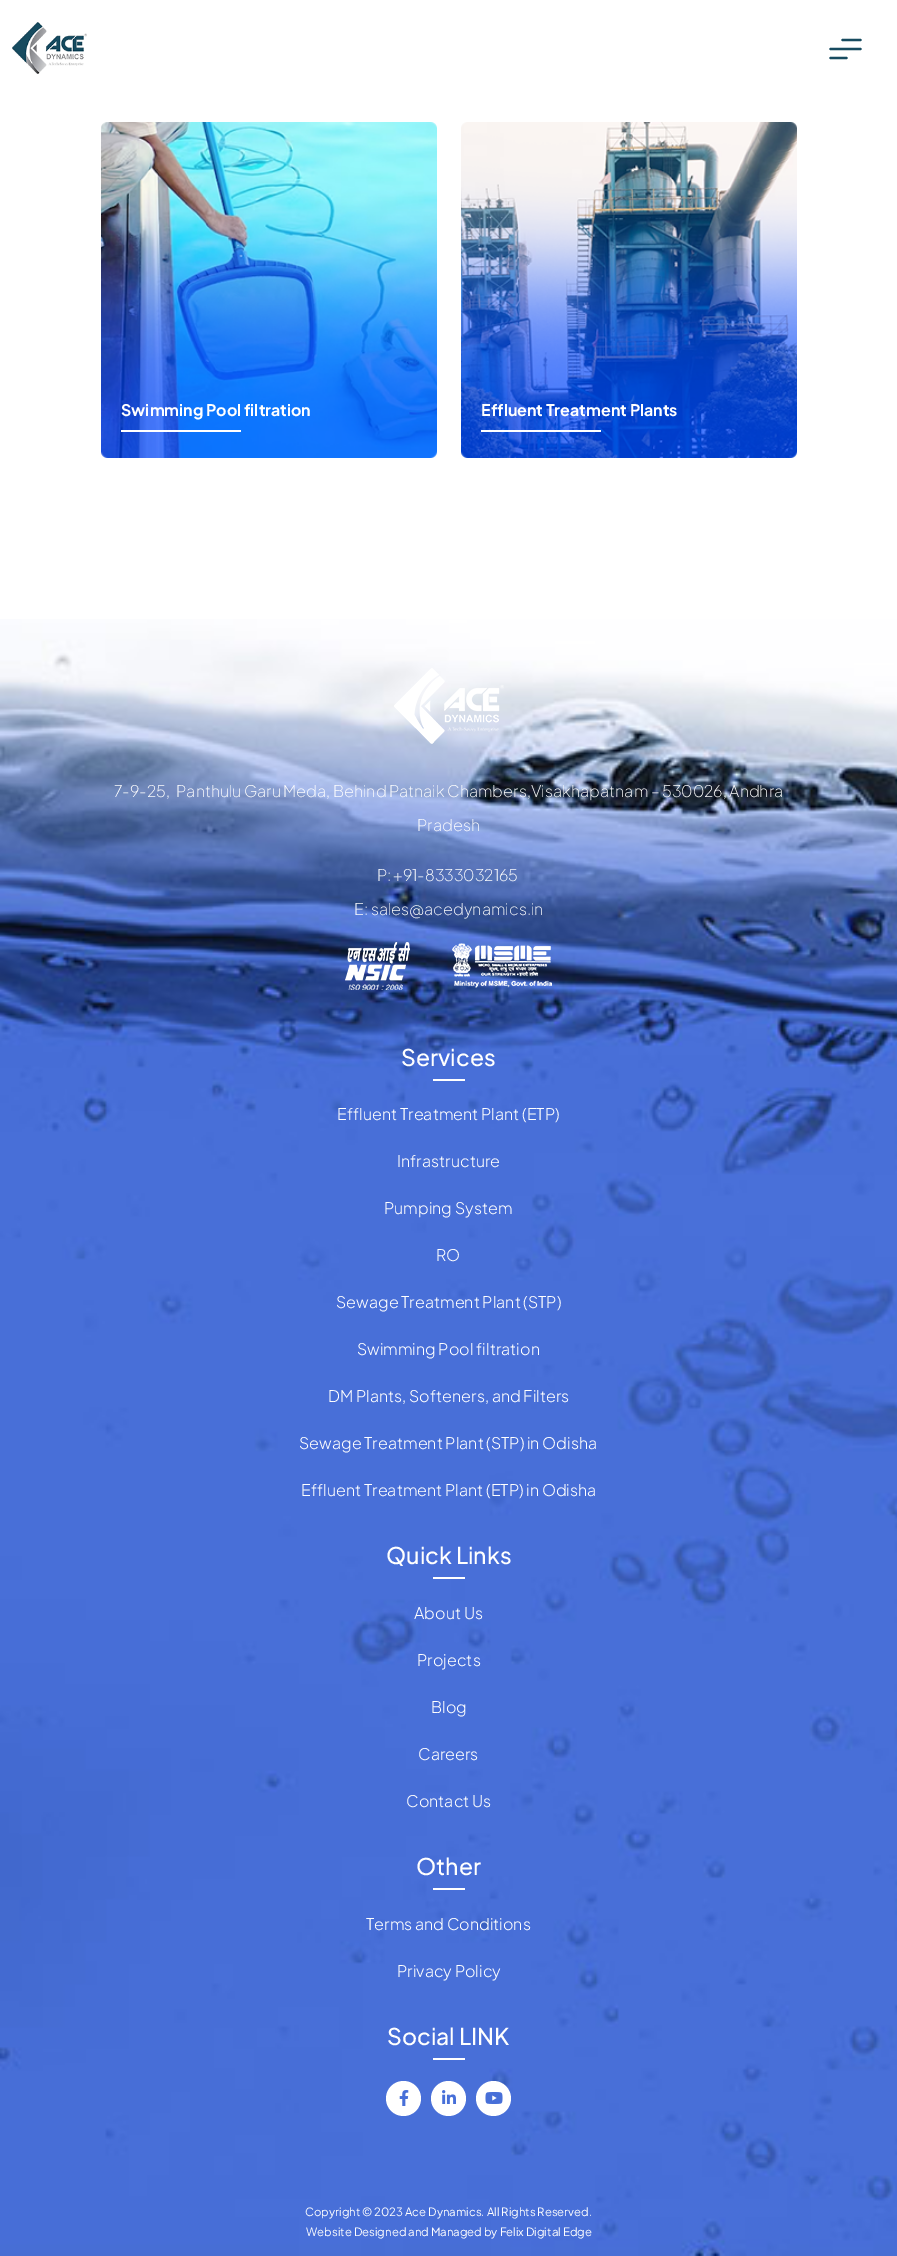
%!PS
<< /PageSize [897 2256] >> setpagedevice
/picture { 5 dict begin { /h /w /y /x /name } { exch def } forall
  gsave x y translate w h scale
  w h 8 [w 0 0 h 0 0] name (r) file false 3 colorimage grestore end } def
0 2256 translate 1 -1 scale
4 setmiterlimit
1 setgray
0 0 897 2256 rectfill
(img1.rgb) 12 22 75 52 picture
0.09 0.294 0.376 setrgbcolor
2.2 setlinewidth
1 setlinecap
1 setlinejoin
newpath 860.5 40 moveto 842.5 40 lineto 846.5 58 moveto 830.5 58 lineto 830.5 49 moveto 860.5 49 lineto stroke
(img2.rgb) 101 122 336 336 picture
/PlusJakartaSans-Bold [16 0 0 -16 0 0] selectfont
1 setgray
121 416 moveto (Swimming Pool filtration) show
121 430 120 2 rectfill
(img3.rgb) 461 122 336 336 picture
481 416 moveto (Effluent Treatment Plants) show
481 430 120 2 rectfill
(img4.rgb) 0 619 897 1637 picture
(img5.rgb) 394 668 110 76 picture
/PlusJakartaSans-ExtraLight [16 0 0 -16 0 0] selectfont
114 797 moveto -0.25 0 32 (7-9-25,) widthshow
176 797 moveto -0.25 0 32 (Panthulu Garu Meda, Behind Patnaik Chambers,) widthshow
531 797 moveto (Visakhapatnam – 530026, Andhra) show
417 831 moveto (Pradesh) show
377 881 moveto -1 0 32 (P: +91-8333032165) widthshow
354 915 moveto (E: sales@acedynamics.in) show
(img6.rgb) 345 942 65 48 picture
(img7.rgb) 452 943 100 45 picture
/PlusJakartaSans-Medium [23 0 0 -23 0 0] selectfont
401 1066 moveto (Services) show
433 1079 32 2 rectfill
/PlusJakartaSans-Light [16 0 0 -16 0 0] selectfont
337 1120 moveto (Effluent Treatment Plant \(ETP\)) show
397 1167 moveto (Infrastructure) show
384 1214 moveto (Pumping System) show
436 1261 moveto (RO) show
336 1308 moveto (Sewage Treatment Plant \(STP\)) show
357 1355 moveto (Swimming Pool filtration) show
328 1402 moveto (DM Plants, Softeners, and Filters) show
299 1449 moveto (Sewage Treatment Plant \(STP\) in Odisha) show
301 1496 moveto (Effluent Treatment Plant \(ETP\) in Odisha) show
/PlusJakartaSans-Medium [23 0 0 -23 0 0] selectfont
386 1564 moveto (Quick Links) show
433 1577 32 2 rectfill
/PlusJakartaSans-Light [16 0 0 -16 0 0] selectfont
414 1619 moveto (About Us) show
417 1666 moveto (Projects) show
431 1713 moveto (Blog) show
418 1760 moveto (Careers) show
406 1807 moveto (Contact Us) show
/PlusJakartaSans-Medium [23 0 0 -23 0 0] selectfont
416 1875 moveto (Other) show
433 1888 32 2 rectfill
/PlusJakartaSans-Light [16 0 0 -16 0 0] selectfont
366 1930 moveto (Terms and Conditions) show
397 1977 moveto (Privacy Policy) show
/PlusJakartaSans-Medium [23 0 0 -23 0 0] selectfont
387 2045 moveto (Social LINK) show
433 2058 32 2 rectfill
newpath 403.5 2098.5 17.5 0 360 arc closepath fill
(img8.rgb) 399 2090 10 16 picture
newpath 448.5 2098.5 17.5 0 360 arc closepath fill
(img9.rgb) 442 2090 14 14 picture
newpath 493.5 2098.5 17.5 0 360 arc closepath fill
(img10.rgb) 485 2092 18 12 picture
/PlusJakartaSans-Regular [11.4 0 0 -11.4 0 0] selectfont
305 2216 moveto (Copyright © 2023 Ace Dynamics. All Rights Reserved.) show
306 2236 moveto (Website Designed and Managed by Felix Digital Edge) show
showpage
